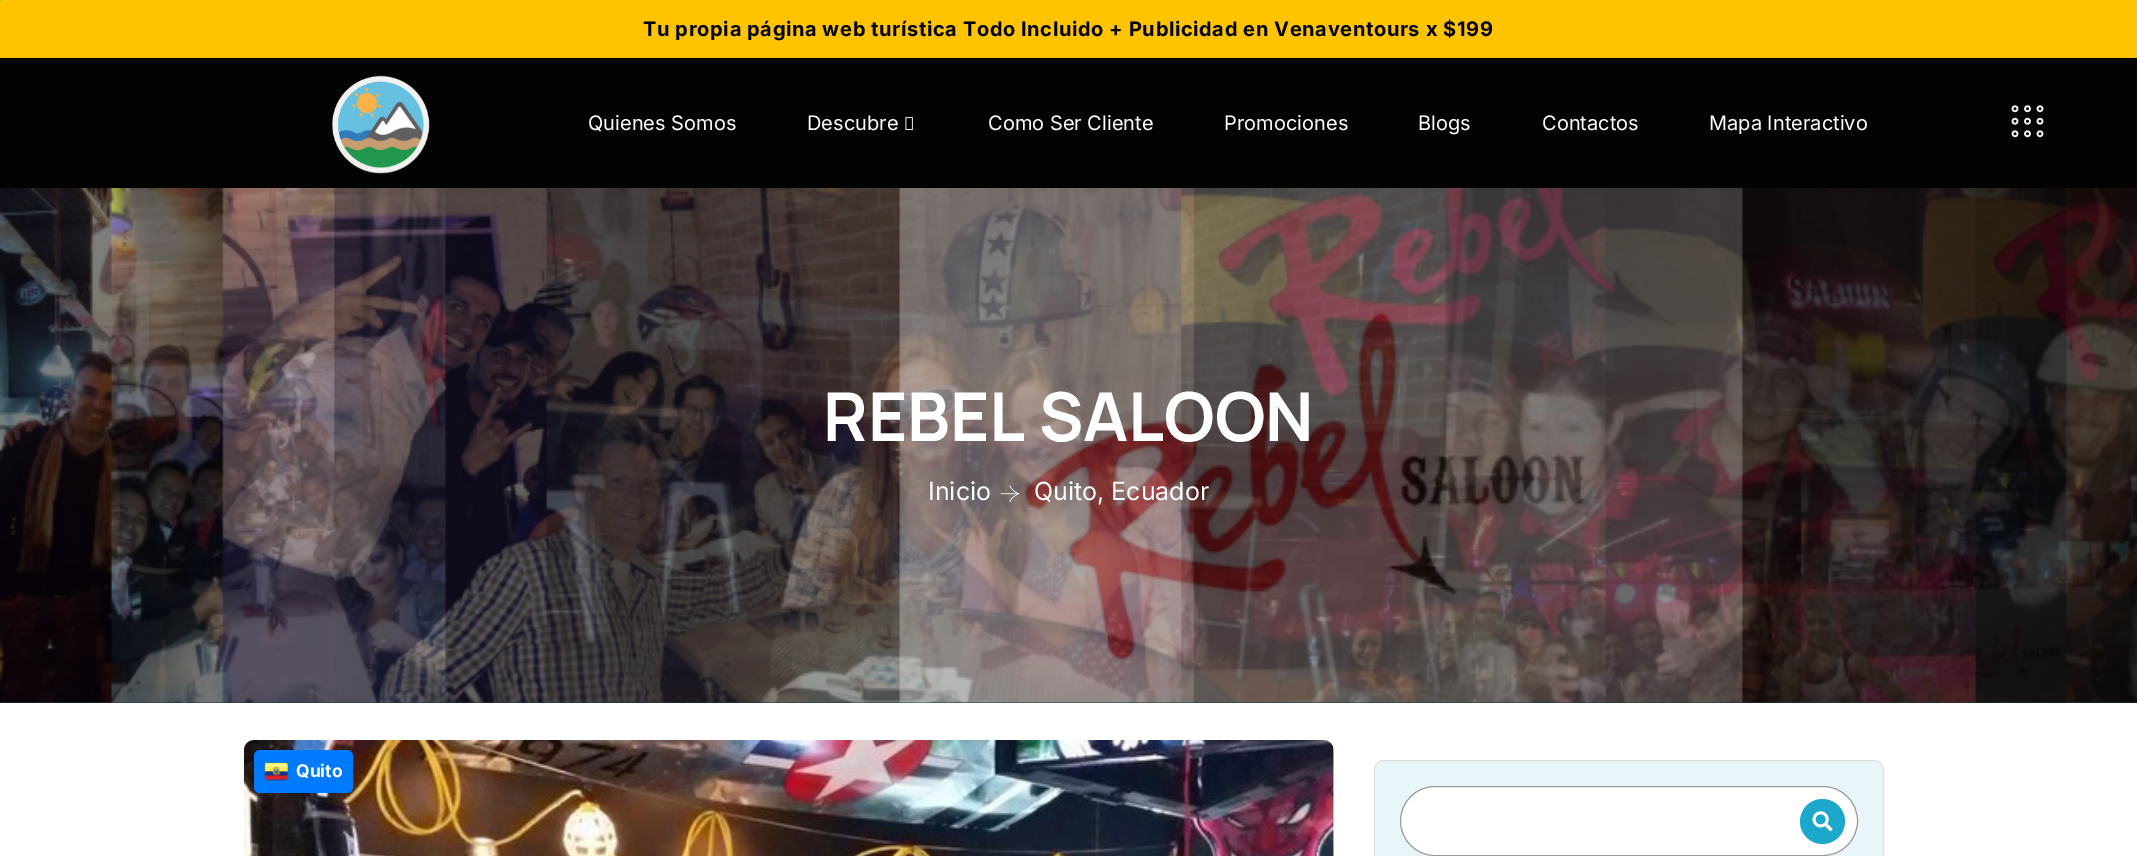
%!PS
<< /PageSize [2137 856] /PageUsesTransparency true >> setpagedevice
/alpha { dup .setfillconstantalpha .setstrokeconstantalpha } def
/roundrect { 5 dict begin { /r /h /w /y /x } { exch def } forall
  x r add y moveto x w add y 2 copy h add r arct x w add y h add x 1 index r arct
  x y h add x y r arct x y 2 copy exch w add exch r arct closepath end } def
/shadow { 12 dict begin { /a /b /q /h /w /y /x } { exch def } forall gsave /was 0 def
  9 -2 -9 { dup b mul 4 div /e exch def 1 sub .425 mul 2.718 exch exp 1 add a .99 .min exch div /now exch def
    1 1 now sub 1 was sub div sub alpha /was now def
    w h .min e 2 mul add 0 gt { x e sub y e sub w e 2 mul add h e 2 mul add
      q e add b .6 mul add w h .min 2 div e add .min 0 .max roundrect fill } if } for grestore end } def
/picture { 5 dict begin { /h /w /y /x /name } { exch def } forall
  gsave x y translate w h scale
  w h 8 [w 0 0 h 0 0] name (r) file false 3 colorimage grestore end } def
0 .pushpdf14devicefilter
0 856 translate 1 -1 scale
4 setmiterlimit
1 setgray
0 0 2137 856 rectfill
0.012 0.012 0.008 setrgbcolor
0 58 2137 130 rectfill
0 setgray
0 3 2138 57 0 2.5 0.1 shadow
1 0.765 0 setrgbcolor
0 0 2137 58 rectfill
0.11 0.659 0.796 setrgbcolor
-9 -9 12 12 9 roundrect fill
/Inter-Bold [20 0 0 -20 0 0] selectfont
0 setgray
643 36 moveto 0.62 0 (Tu propia página web turística Todo Incluido + Publicidad en Venaventours x $199) ashow
(img1.rgb) 332 75 98 99 picture
/Inter-Regular [20 0 0 -20 0 0] selectfont
1 setgray
588 130 moveto (Quienes Somos) show
807 130 moveto (Descubre) show
(img2.rgb) 905 117 8 13 picture
988 130 moveto (Como Ser Cliente) show
1224 130 moveto (Promociones) show
1418 130 moveto (Blogs) show
1542 130 moveto (Contactos) show
1709 130 moveto (Mapa Interactivo) show
(img3.rgb) 2011 105 33 33 picture
0.067 0.239 0.282 setrgbcolor
0 702 2137 1 rectfill
(img4.rgb) 0 188 2137 515 picture
/Manrope-Bold [67.5 0 0 -67.5 0 0] selectfont
1 setgray
823 441 moveto (REBEL SALOON) show
/Inter-Regular [25 0 0 -25 0 0] selectfont
928 500 moveto (Inicio) show
(img5.rgb) 1000 485 20 17 picture
1034 500 moveto (Quito, Ecuador) show
(img6.rgb) 244 740 1090 116 picture
0 0.482 1 setrgbcolor
254 750 99 43 6 roundrect fill
(img7.rgb) 264 762 25 20 picture
/Inter-Bold [17.5 0 0 -17.5 0 0] selectfont
1 setgray
296 777 moveto (Quito) show
0.914 0.965 0.976 setrgbcolor
1374.5 760.5 509 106 9.5 roundrect gsave fill grestore
0.878 setgray
stroke
1 setgray
1400.5 786.5 457 69 34.5 roundrect gsave fill grestore
0.6 setgray
stroke
0.11 0.659 0.796 setrgbcolor
newpath 1822.5 821.5 22.5 0 360 arc closepath fill
(img8.rgb) 1812 811 21 21 picture
.poppdf14devicefilter showpage
